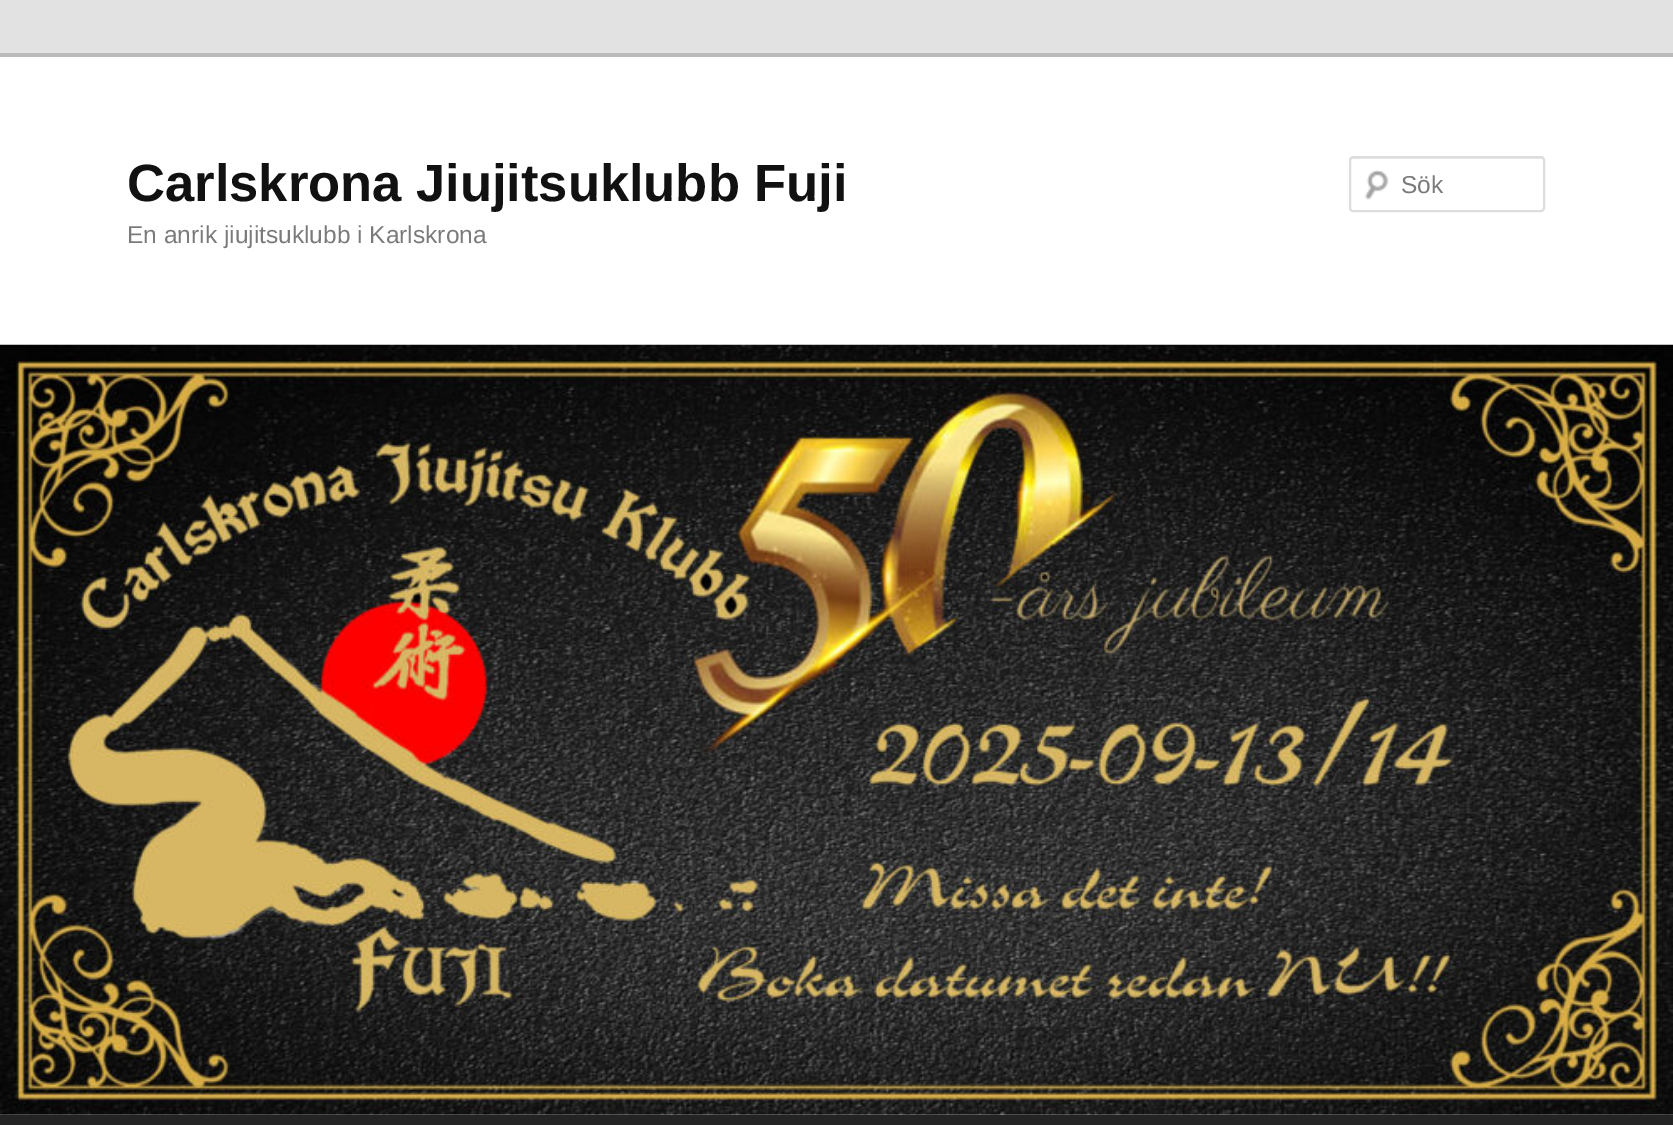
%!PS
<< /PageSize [1673 1125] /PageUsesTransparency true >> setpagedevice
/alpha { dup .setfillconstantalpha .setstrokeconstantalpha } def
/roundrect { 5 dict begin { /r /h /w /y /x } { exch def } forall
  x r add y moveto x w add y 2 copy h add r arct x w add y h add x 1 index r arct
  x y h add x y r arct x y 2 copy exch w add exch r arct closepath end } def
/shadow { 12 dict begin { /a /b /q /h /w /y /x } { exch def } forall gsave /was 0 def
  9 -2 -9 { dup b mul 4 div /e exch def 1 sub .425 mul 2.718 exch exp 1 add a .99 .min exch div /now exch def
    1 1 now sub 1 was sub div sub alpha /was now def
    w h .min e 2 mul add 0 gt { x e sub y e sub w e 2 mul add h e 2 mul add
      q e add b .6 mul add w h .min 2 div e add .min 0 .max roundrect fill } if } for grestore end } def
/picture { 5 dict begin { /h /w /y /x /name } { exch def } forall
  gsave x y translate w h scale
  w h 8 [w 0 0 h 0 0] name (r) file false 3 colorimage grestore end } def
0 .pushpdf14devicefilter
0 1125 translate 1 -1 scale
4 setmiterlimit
0.886 setgray
0 0 1673 1125 rectfill
1 setgray
0 57 1673 1058 rectfill
0.733 setgray
0 53 1673 4 rectfill
/LiberationSans-Bold [52.5 0 0 -52.5 0 0] selectfont
0.067 setgray
127 201 moveto (Carlskrona Jiujitsuklubb Fuji) show
/LiberationSans-Regular [24.5 0 0 -24.5 0 0] selectfont
0.478 setgray
127 243 moveto (En anrik jiujitsuklubb i Karlskrona) show
(img1.rgb) 1364 170 25 30 picture
0.902 setgray
newpath 1353 159 moveto 1542 159 lineto 1544 160 lineto 1544 161 lineto 1544 160 lineto 1544 159 1543 158 1542 158 curveto 1353 158 lineto 1352 158 1351 159 1351 160 curveto 1351 161 lineto 1351 160 1352 159 1353 159 curveto closepath fill
0.867 setgray
2 setlinewidth
1350 157 194 54 3 roundrect stroke
0.478 setgray
1401 193 moveto (Sök) show
0 setgray
0 1117 1673 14 0 2 0.4 shadow
(img2.rgb) 0 344 1673 771 picture
gsave newpath 0 1115 moveto 1673 1115 lineto 1673 1125 lineto 0 1125 lineto closepath clip newpath
<< /ShadingType 2 /ColorSpace /DeviceRGB /Coords [837 1115 837 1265] /Extend [true true] /Function << /FunctionType 2 /Domain [0 1] /C0 [0.145 0.145 0.145] /C1 [0.039 0.039 0.039] /N 1 >> >> shfill grestore
.poppdf14devicefilter showpage
